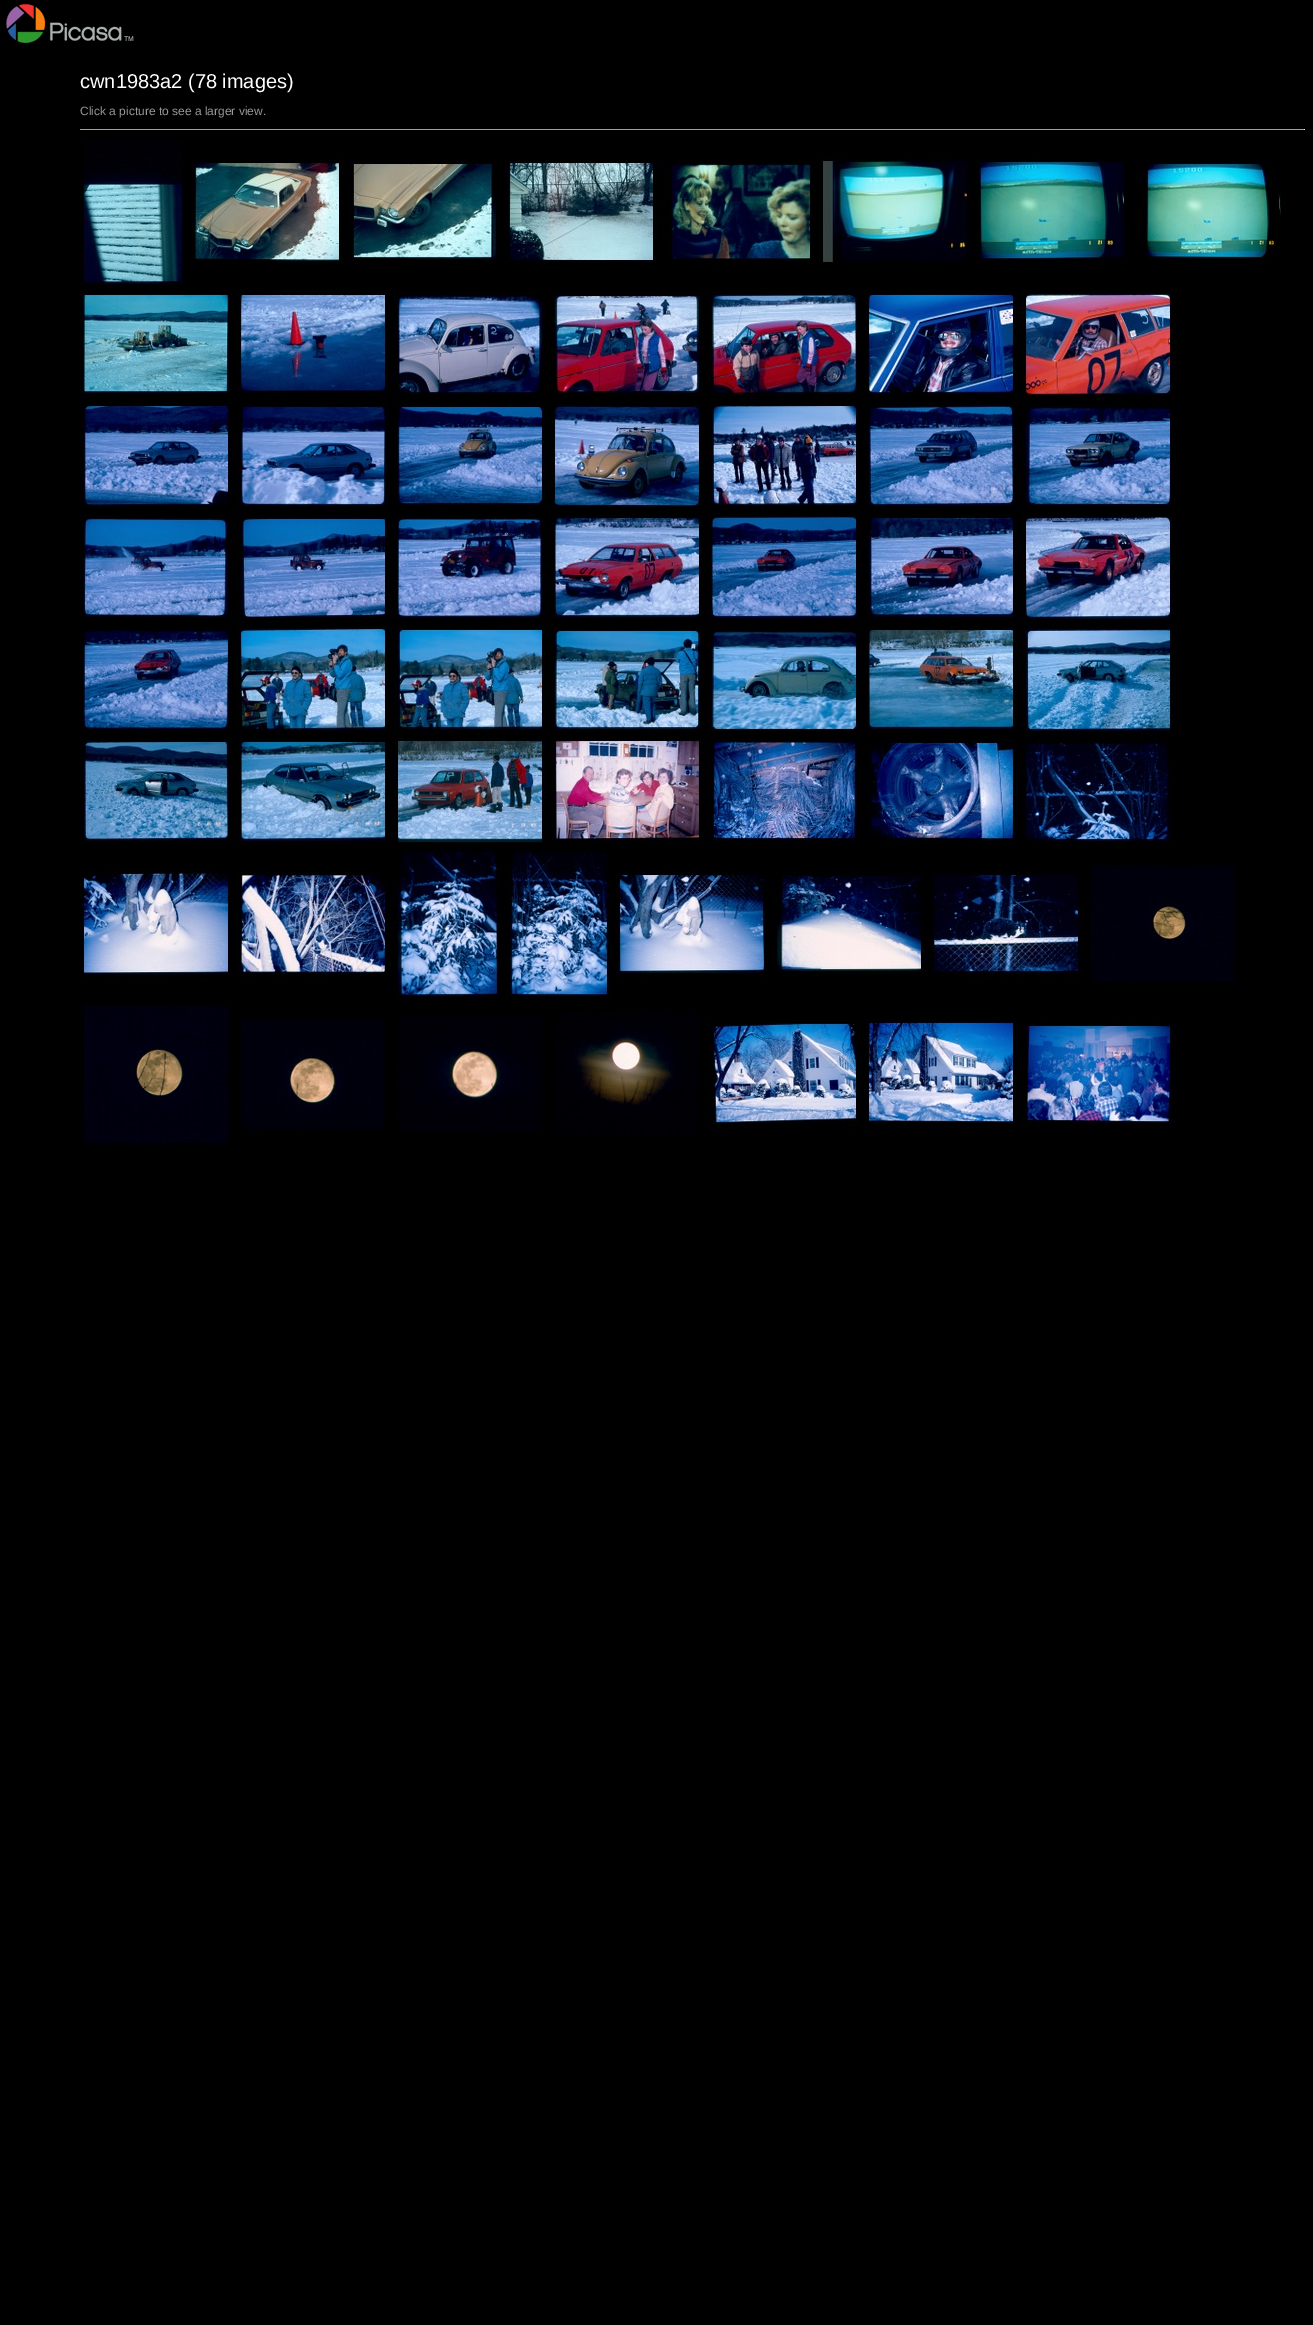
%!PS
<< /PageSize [1313 2325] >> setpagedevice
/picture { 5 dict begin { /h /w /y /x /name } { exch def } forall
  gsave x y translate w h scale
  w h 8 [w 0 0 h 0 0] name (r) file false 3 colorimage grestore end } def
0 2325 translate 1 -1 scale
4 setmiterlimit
0 setgray
0 0 1313 2325 rectfill
(img1.rgb) 6 4 128 39 picture
/LiberationSans-Regular [20 0 0 -20 0 0] selectfont
1 setgray
80 88 moveto (cwn1983a2 \(78 images\)) show
/LiberationSans-Regular [12 0 0 -12 0 0] selectfont
0.6 setgray
80 115 moveto (Click a picture to see a larger view.) show
0.624 setgray
80 129 1225 1 rectfill
0.933 setgray
1304 129 1 1 rectfill
(img2.rgb) 80 140 104 148 picture
(img3.rgb) 191 159 154 105 picture
(img4.rgb) 348 160 150 104 picture
(img5.rgb) 505 159 152 104 picture
(img6.rgb) 662 159 154 107 picture
(img7.rgb) 819 157 154 106 picture
(img8.rgb) 976 158 150 106 picture
(img9.rgb) 1137 160 144 100 picture
(img10.rgb) 80 291 154 107 picture
(img11.rgb) 237 291 152 106 picture
(img12.rgb) 394 291 151 108 picture
(img13.rgb) 551 292 154 107 picture
(img14.rgb) 708 291 154 108 picture
(img15.rgb) 865 291 152 109 picture
(img16.rgb) 1022 290 154 111 picture
(img17.rgb) 80 402 154 107 picture
(img18.rgb) 237 403 152 108 picture
(img19.rgb) 394 403 154 104 picture
(img20.rgb) 551 401 154 112 picture
(img21.rgb) 708 402 152 109 picture
(img22.rgb) 865 402 154 110 picture
(img23.rgb) 1022 403 152 105 picture
(img24.rgb) 80 515 154 104 picture
(img25.rgb) 237 515 154 108 picture
(img26.rgb) 394 515 154 108 picture
(img27.rgb) 551 514 154 105 picture
(img28.rgb) 708 513 154 112 picture
(img29.rgb) 865 514 152 110 picture
(img30.rgb) 1022 513 152 112 picture
(img31.rgb) 80 627 152 108 picture
(img32.rgb) 237 625 154 111 picture
(img33.rgb) 394 626 154 109 picture
(img34.rgb) 551 627 154 108 picture
(img35.rgb) 708 627 154 108 picture
(img36.rgb) 865 626 154 105 picture
(img37.rgb) 1022 625 154 112 picture
(img38.rgb) 80 738 154 105 picture
(img39.rgb) 237 738 154 107 picture
(img40.rgb) 394 737 154 107 picture
(img41.rgb) 551 737 154 107 picture
(img42.rgb) 708 738 154 108 picture
(img43.rgb) 865 739 152 106 picture
(img44.rgb) 1022 738 151 109 picture
(img45.rgb) 80 869 152 112 picture
(img46.rgb) 237 871 154 108 picture
(img47.rgb) 394 848 109 154 picture
(img48.rgb) 506 848 107 151 picture
(img49.rgb) 616 871 152 108 picture
(img50.rgb) 773 872 154 104 picture
(img51.rgb) 930 871 154 108 picture
(img52.rgb) 1090 865 146 118 picture
(img53.rgb) 80 1005 149 140 picture
(img54.rgb) 240 1018 146 112 picture
(img55.rgb) 398 1016 145 117 picture
(img56.rgb) 555 1012 144 124 picture
(img57.rgb) 708 1020 154 111 picture
(img58.rgb) 865 1019 154 112 picture
(img59.rgb) 1022 1022 154 107 picture
showpage
